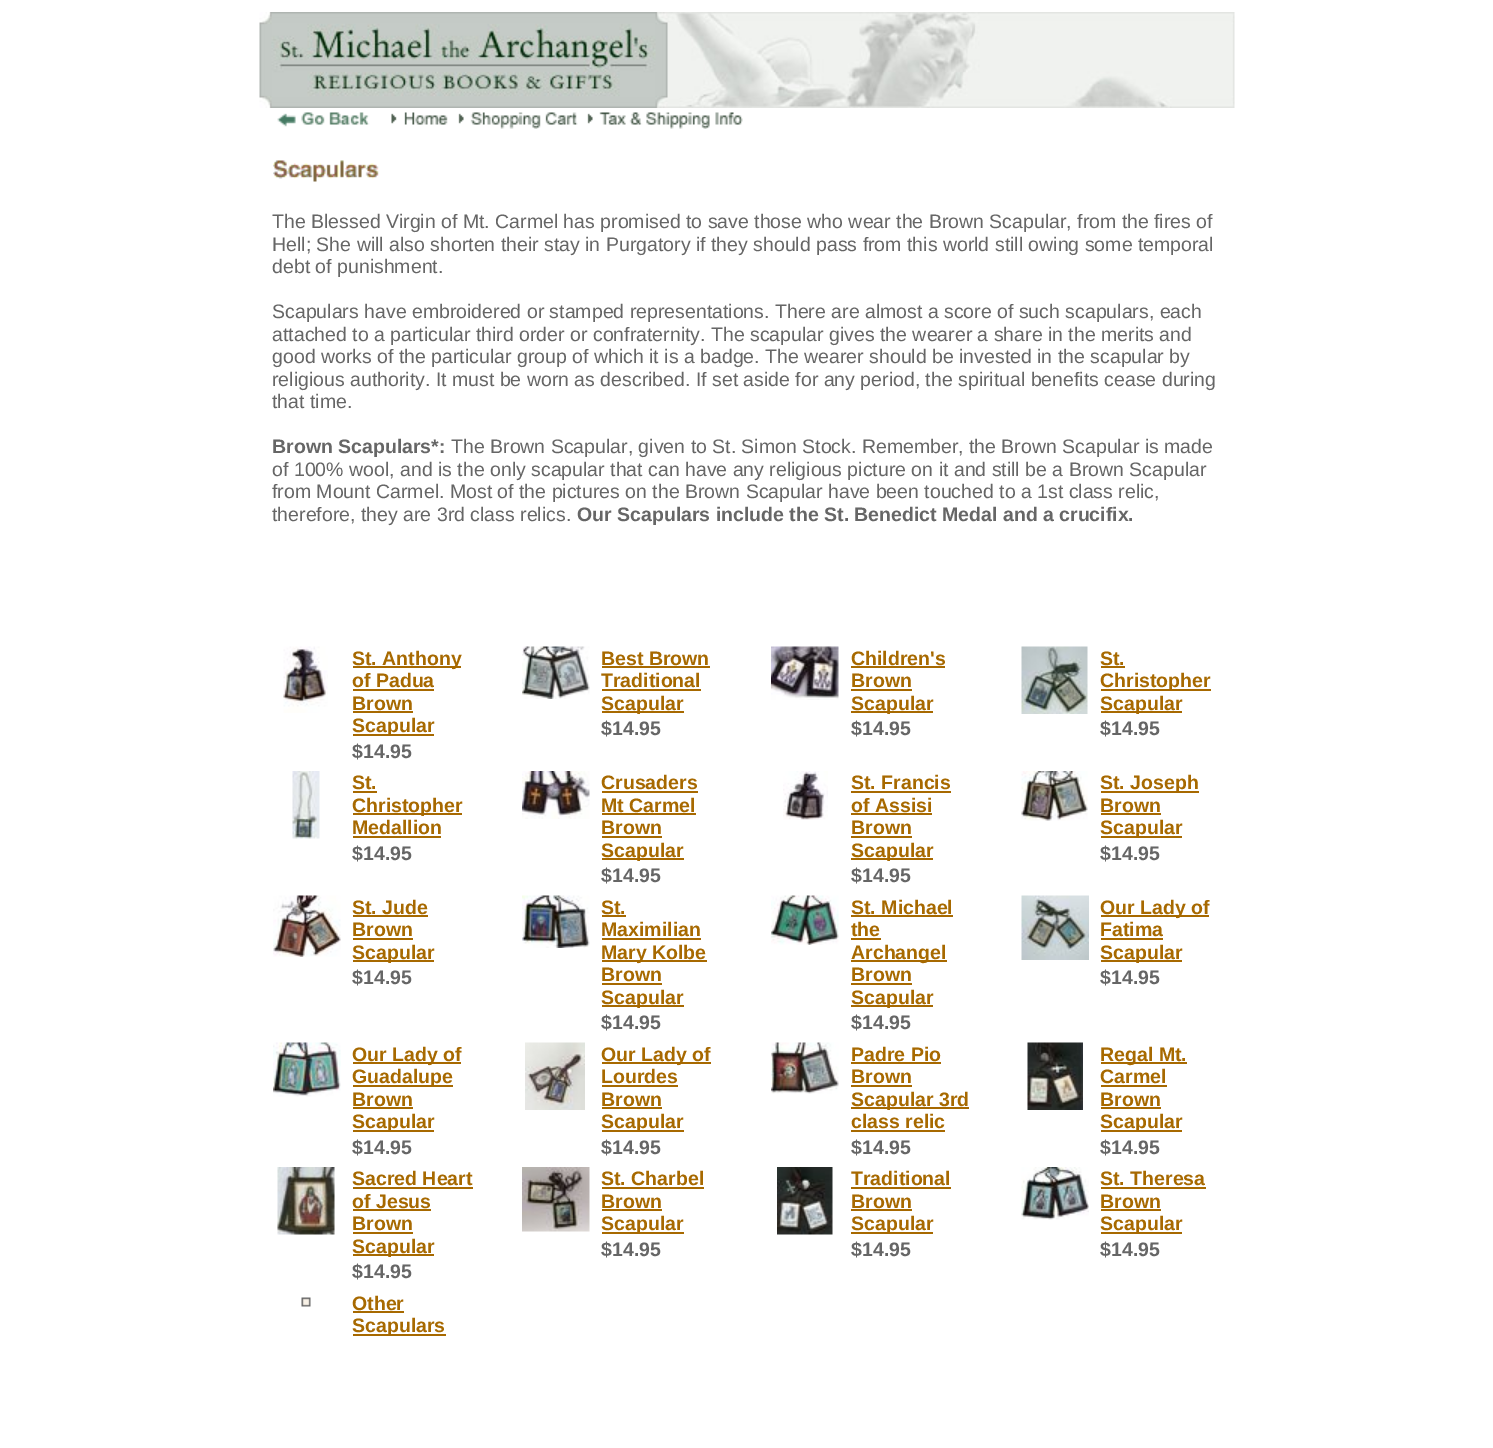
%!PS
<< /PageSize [1493 1448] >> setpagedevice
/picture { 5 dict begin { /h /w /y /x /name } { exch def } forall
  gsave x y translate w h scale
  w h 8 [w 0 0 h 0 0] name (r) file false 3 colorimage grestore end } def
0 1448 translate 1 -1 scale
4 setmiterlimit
1 setgray
0 0 1493 1448 rectfill
(img1.rgb) 259 12 976 96 picture
(img2.rgb) 277 112 466 17 picture
(img3.rgb) 273 160 106 22 picture
/LiberationSans-Regular [19.5 0 0 -19.5 0 0] selectfont
0.4 setgray
272 228 moveto (The Blessed Virgin of Mt. Carmel has promised to save those who wear the Brown Scapular, from the fires of) show
272 251 moveto (Hell; She will also shorten their stay in Purgatory if they should pass from this world still owing some temporal) show
272 273 moveto (debt of punishment.) show
272 318 moveto (Scapulars have embroidered or stamped representations. There are almost a score of such scapulars, each) show
272 341 moveto (attached to a particular third order or confraternity. The scapular gives the wearer a share in the merits and) show
272 363 moveto (good works of the particular group of which it is a badge. The wearer should be invested in the scapular by) show
272 386 moveto (religious authority. It must be worn as described. If set aside for any period, the spiritual benefits cease during) show
272 408 moveto (that time.) show
/LiberationSans-Bold [19.5 0 0 -19.5 0 0] selectfont
272 453 moveto (Brown Scapulars*:) show
/LiberationSans-Regular [19.5 0 0 -19.5 0 0] selectfont
451 453 moveto (The Brown Scapular, given to St. Simon Stock. Remember, the Brown Scapular is made) show
272 476 moveto (of 100% wool, and is the only scapular that can have any religious picture on it and still be a Brown Scapular) show
272 498 moveto (from Mount Carmel. Most of the pictures on the Brown Scapular have been touched to a 1st class relic,) show
272 521 moveto (therefore, they are 3rd class relics.) show
/LiberationSans-Bold [19.5 0 0 -19.5 0 0] selectfont
577 521 moveto (Our Scapulars include the St. Benedict Medal and a crucifix.) show
(img4.rgb) 283 646 45 67 picture
0.655 0.412 0 setrgbcolor
353 666 108 2 rectfill
352 665 moveto (St. Anthony) show
352 687 moveto (of Padua) show
353 689 81 2 rectfill
352 710 moveto (Brown) show
353 711 60 2 rectfill
353 734 81 2 rectfill
352 732 moveto (Scapular) show
0.4 setgray
352 758 moveto ($14.95) show
(img5.rgb) 522 646 68 53 picture
0.655 0.412 0 setrgbcolor
601 665 moveto (Best Brown) show
602 666 108 2 rectfill
601 687 moveto (Traditional) show
602 689 99 2 rectfill
602 711 82 2 rectfill
601 710 moveto (Scapular) show
0.4 setgray
601 735 moveto ($14.95) show
(img6.rgb) 771 646 68 54 picture
0.655 0.412 0 setrgbcolor
851 665 moveto (Children's) show
851 666 94 2 rectfill
851 687 moveto (Brown) show
851 689 61 2 rectfill
851 711 82 2 rectfill
851 710 moveto (Scapular) show
0.4 setgray
851 735 moveto ($14.95) show
(img7.rgb) 1021 646 67 68 picture
0.655 0.412 0 setrgbcolor
1100 665 moveto (St.) show
1101 666 24 2 rectfill
1101 689 110 2 rectfill
1100 687 moveto (Christopher) show
1101 711 81 2 rectfill
1100 710 moveto (Scapular) show
0.4 setgray
1100 735 moveto ($14.95) show
(img8.rgb) 292 771 28 68 picture
0.655 0.412 0 setrgbcolor
352 789 moveto (St.) show
353 791 24 2 rectfill
353 813 109 2 rectfill
352 812 moveto (Christopher) show
352 834 moveto (Medallion) show
353 836 88 2 rectfill
0.4 setgray
352 860 moveto ($14.95) show
(img9.rgb) 522 771 68 48 picture
0.655 0.412 0 setrgbcolor
601 789 moveto (Crusaders) show
602 791 96 2 rectfill
601 812 moveto (Mt Carmel) show
602 813 94 2 rectfill
601 834 moveto (Brown) show
602 836 60 2 rectfill
602 858 82 2 rectfill
601 857 moveto (Scapular) show
0.4 setgray
601 882 moveto ($14.95) show
(img10.rgb) 783 771 45 49 picture
0.655 0.412 0 setrgbcolor
851 789 moveto (St. Francis) show
851 791 100 2 rectfill
851 812 moveto (of Assisi) show
851 813 81 2 rectfill
851 834 moveto (Brown) show
851 836 61 2 rectfill
851 858 82 2 rectfill
851 857 moveto (Scapular) show
0.4 setgray
851 882 moveto ($14.95) show
(img11.rgb) 1021 771 67 50 picture
0.655 0.412 0 setrgbcolor
1101 791 98 2 rectfill
1100 789 moveto (St. Joseph) show
1100 812 moveto (Brown) show
1101 813 60 2 rectfill
1101 836 81 2 rectfill
1100 834 moveto (Scapular) show
0.4 setgray
1100 860 moveto ($14.95) show
(img12.rgb) 273 895 68 62 picture
0.655 0.412 0 setrgbcolor
352 914 moveto (St. Jude) show
353 915 75 2 rectfill
352 936 moveto (Brown) show
353 938 60 2 rectfill
353 960 81 2 rectfill
352 959 moveto (Scapular) show
0.4 setgray
352 984 moveto ($14.95) show
(img13.rgb) 522 895 68 53 picture
0.655 0.412 0 setrgbcolor
601 914 moveto (St.) show
602 915 24 2 rectfill
601 936 moveto (Maximilian) show
602 938 99 2 rectfill
602 960 105 2 rectfill
601 959 moveto (Mary Kolbe) show
601 981 moveto (Brown) show
602 983 60 2 rectfill
602 1005 82 2 rectfill
601 1004 moveto (Scapular) show
0.4 setgray
601 1029 moveto ($14.95) show
(img14.rgb) 771 895 68 50 picture
0.655 0.412 0 setrgbcolor
851 914 moveto (St. Michael) show
851 915 102 2 rectfill
851 936 moveto (the) show
851 938 30 2 rectfill
851 960 96 2 rectfill
851 959 moveto (Archangel) show
851 981 moveto (Brown) show
851 983 61 2 rectfill
851 1005 82 2 rectfill
851 1004 moveto (Scapular) show
0.4 setgray
851 1029 moveto ($14.95) show
(img15.rgb) 1021 895 68 65 picture
0.655 0.412 0 setrgbcolor
1101 915 108 2 rectfill
1100 914 moveto (Our Lady of) show
1100 936 moveto (Fatima) show
1101 938 62 2 rectfill
1101 960 81 2 rectfill
1100 959 moveto (Scapular) show
0.4 setgray
1100 984 moveto ($14.95) show
(img16.rgb) 273 1042 68 55 picture
0.655 0.412 0 setrgbcolor
353 1062 108 2 rectfill
352 1061 moveto (Our Lady of) show
353 1085 100 2 rectfill
352 1083 moveto (Guadalupe) show
352 1106 moveto (Brown) show
353 1107 60 2 rectfill
353 1130 81 2 rectfill
352 1128 moveto (Scapular) show
0.4 setgray
352 1154 moveto ($14.95) show
(img17.rgb) 525 1042 60 68 picture
0.655 0.412 0 setrgbcolor
602 1062 109 2 rectfill
601 1061 moveto (Our Lady of) show
601 1083 moveto (Lourdes) show
602 1085 76 2 rectfill
601 1106 moveto (Brown) show
602 1107 60 2 rectfill
602 1130 82 2 rectfill
601 1128 moveto (Scapular) show
0.4 setgray
601 1154 moveto ($14.95) show
(img18.rgb) 771 1042 68 52 picture
0.655 0.412 0 setrgbcolor
851 1061 moveto (Padre Pio) show
851 1062 90 2 rectfill
851 1083 moveto (Brown) show
851 1085 61 2 rectfill
851 1107 118 2 rectfill
851 1106 moveto (Scapular 3rd) show
851 1128 moveto (class relic) show
851 1130 94 2 rectfill
0.4 setgray
851 1154 moveto ($14.95) show
(img19.rgb) 1027 1042 56 68 picture
0.655 0.412 0 setrgbcolor
1101 1062 86 2 rectfill
1100 1061 moveto (Regal Mt.) show
1100 1083 moveto (Carmel) show
1101 1085 66 2 rectfill
1100 1106 moveto (Brown) show
1101 1107 60 2 rectfill
1101 1130 81 2 rectfill
1100 1128 moveto (Scapular) show
0.4 setgray
1100 1154 moveto ($14.95) show
(img20.rgb) 277 1167 58 68 picture
0.655 0.412 0 setrgbcolor
352 1185 moveto (Sacred Heart) show
353 1187 120 2 rectfill
352 1208 moveto (of Jesus) show
353 1209 78 2 rectfill
352 1230 moveto (Brown) show
353 1232 60 2 rectfill
353 1254 81 2 rectfill
352 1253 moveto (Scapular) show
0.4 setgray
352 1278 moveto ($14.95) show
(img21.rgb) 522 1167 68 65 picture
0.655 0.412 0 setrgbcolor
601 1185 moveto (St. Charbel) show
602 1187 102 2 rectfill
601 1208 moveto (Brown) show
602 1209 60 2 rectfill
602 1232 82 2 rectfill
601 1230 moveto (Scapular) show
0.4 setgray
601 1256 moveto ($14.95) show
(img22.rgb) 777 1167 56 68 picture
0.655 0.412 0 setrgbcolor
851 1185 moveto (Traditional) show
851 1187 100 2 rectfill
851 1208 moveto (Brown) show
851 1209 61 2 rectfill
851 1232 82 2 rectfill
851 1230 moveto (Scapular) show
0.4 setgray
851 1256 moveto ($14.95) show
(img23.rgb) 1021 1167 68 53 picture
0.655 0.412 0 setrgbcolor
1100 1185 moveto (St. Theresa) show
1101 1187 105 2 rectfill
1100 1208 moveto (Brown) show
1101 1209 60 2 rectfill
1101 1232 81 2 rectfill
1100 1230 moveto (Scapular) show
0.4 setgray
1100 1256 moveto ($14.95) show
(img24.rgb) 301 1297 10 10 picture
0.655 0.412 0 setrgbcolor
352 1310 moveto (Other) show
353 1311 51 2 rectfill
353 1334 93 2 rectfill
352 1332 moveto (Scapulars) show
showpage
